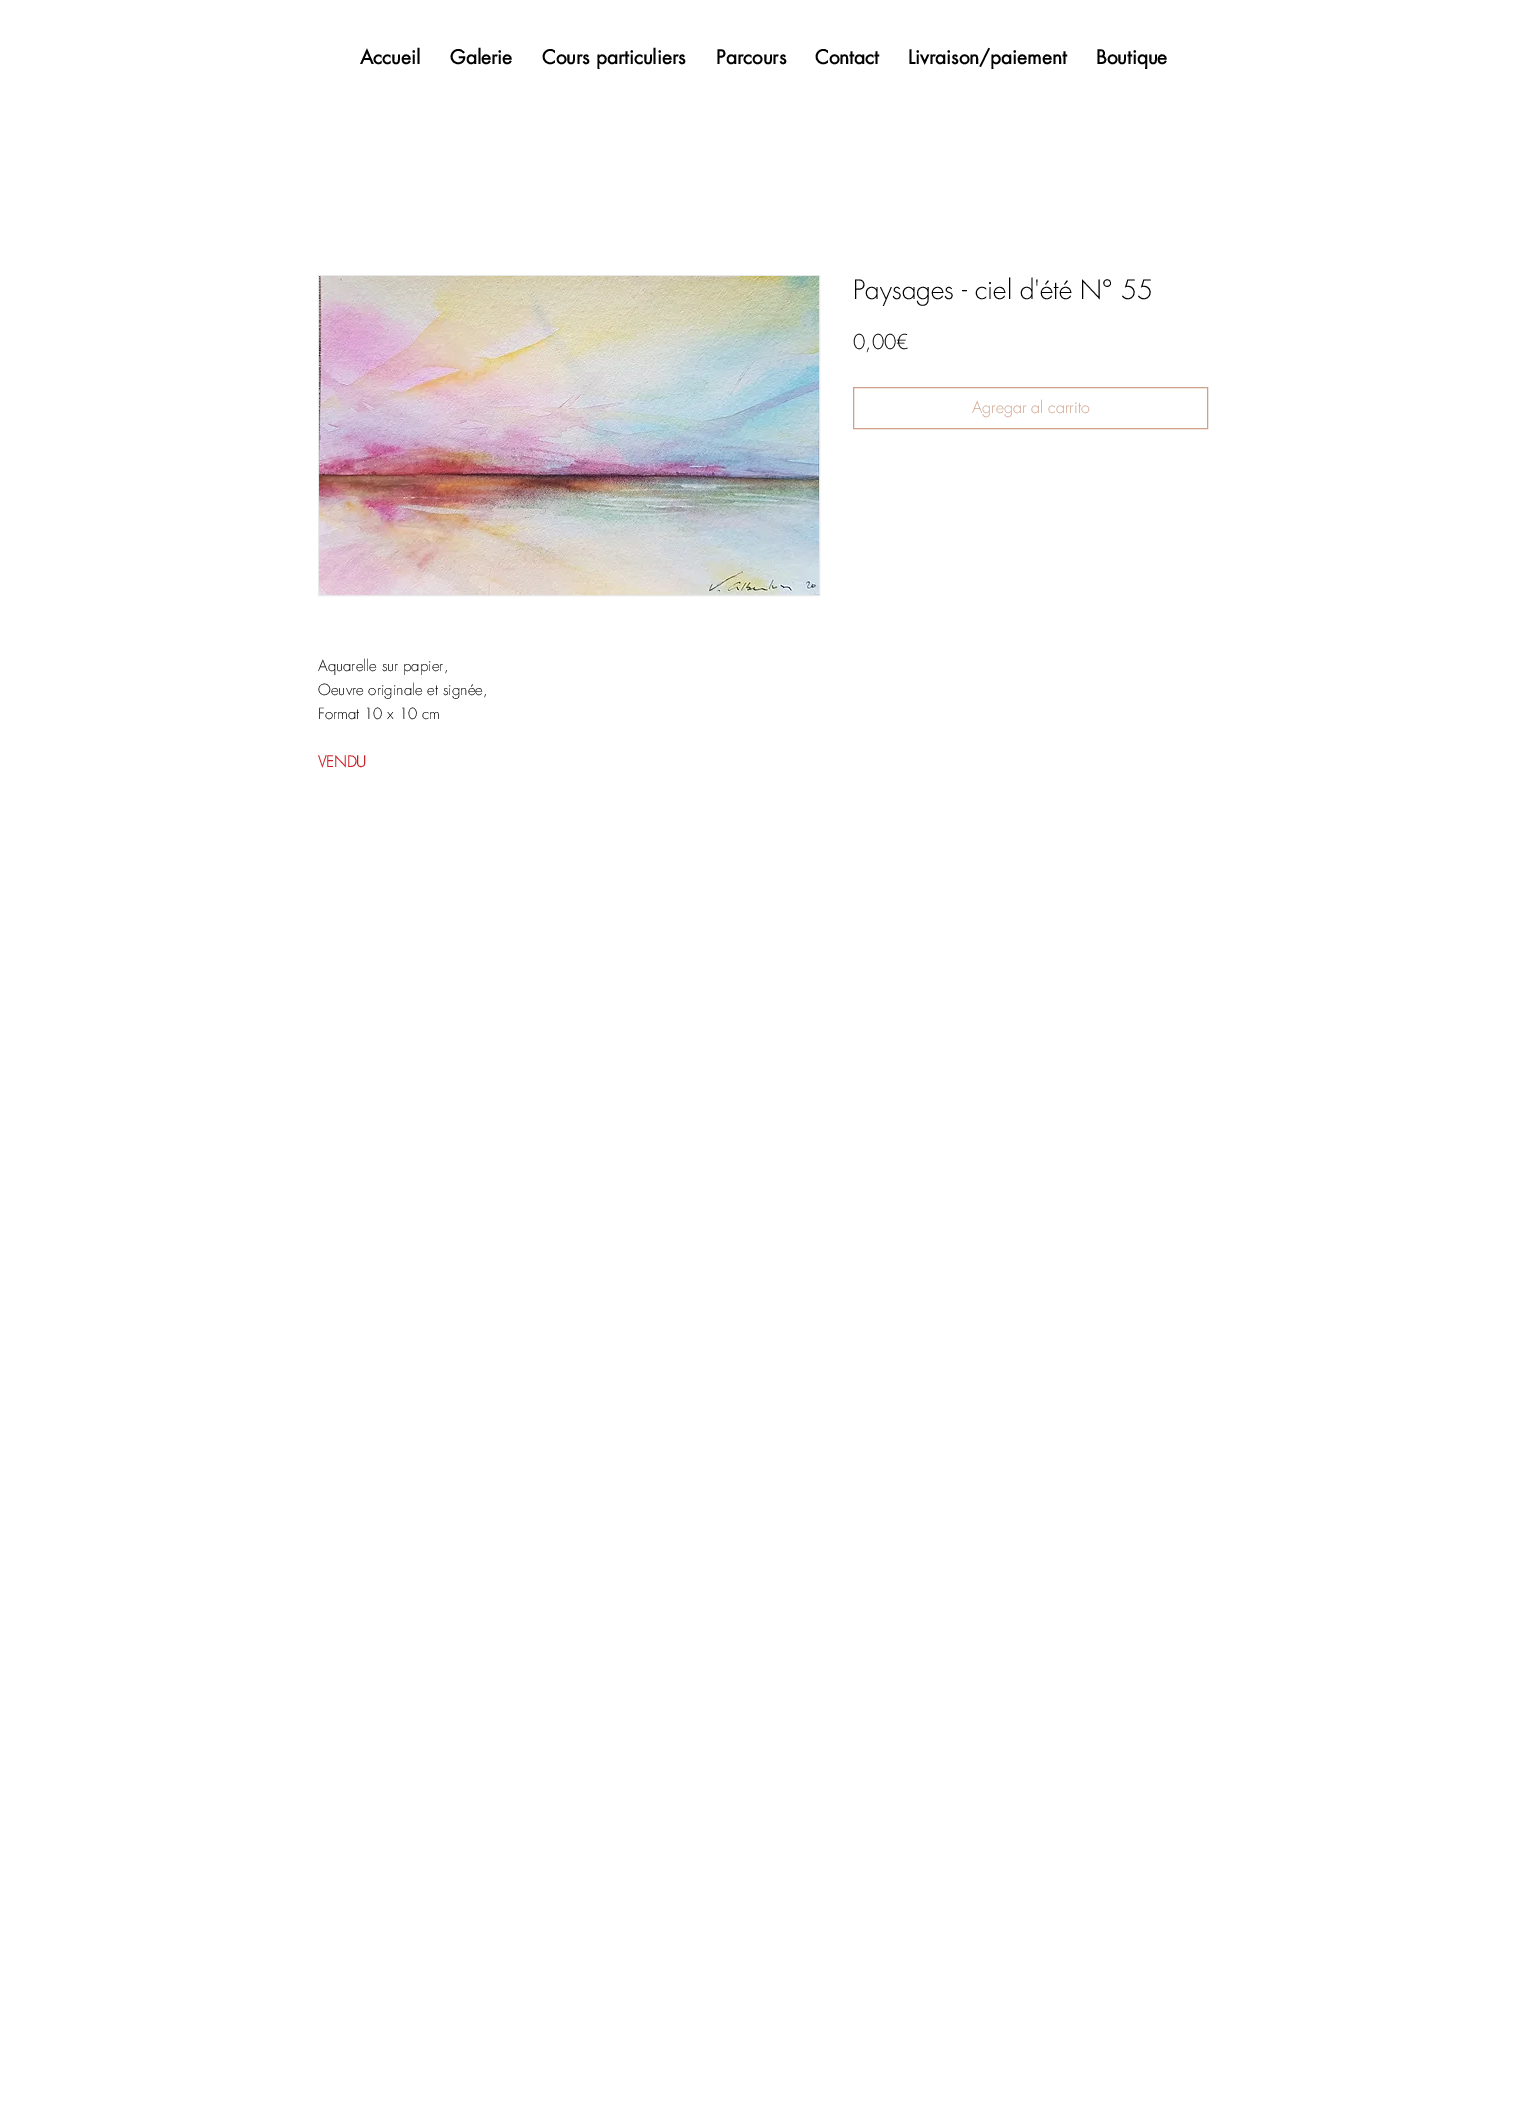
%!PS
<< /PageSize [1526 2112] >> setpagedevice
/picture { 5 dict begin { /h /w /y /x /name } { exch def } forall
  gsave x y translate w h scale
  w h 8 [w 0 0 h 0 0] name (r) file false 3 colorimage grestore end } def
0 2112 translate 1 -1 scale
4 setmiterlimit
1 setgray
0 0 1526 2112 rectfill
/futura-Bold [19 0 0 -19 0 0] selectfont
0 setgray
360 64 moveto (Accueil) show
450 64 moveto (Galerie) show
542 64 moveto (Cours particuliers) show
716 64 moveto (Parcours) show
815 64 moveto (Contact) show
908 64 moveto (Livraison/paiement) show
1096 64 moveto (Boutique) show
/futura-Light [26 0 0 -26 0 0] selectfont
853 299 moveto (Paysages - ciel d'été N° 55) show
/futura-Light [20 0 0 -20 0 0] selectfont
853 349 moveto (0,00€) show
0.808 0.627 0.541 setrgbcolor
853.5 387.5 354 41 rectstroke
/futura-Light [16 0 0 -16 0 0] selectfont
972 413 moveto (Agregar al carrito) show
0.91 setgray
318.5 275.5 501 320 rectstroke
(img1.rgb) 319 276 500 319 picture
/futura-Light [15 0 0 -15 0 0] selectfont
0 setgray
318 671 moveto (Aquarelle sur papier,) show
318 695 moveto (Oeuvre originale et signée,) show
318 719 moveto (Format 10 x 10 cm) show
/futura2-Bold [15 0 0 -15 0 0] selectfont
0.796 0.125 0.149 setrgbcolor
318 767 moveto (VENDU) show
showpage
